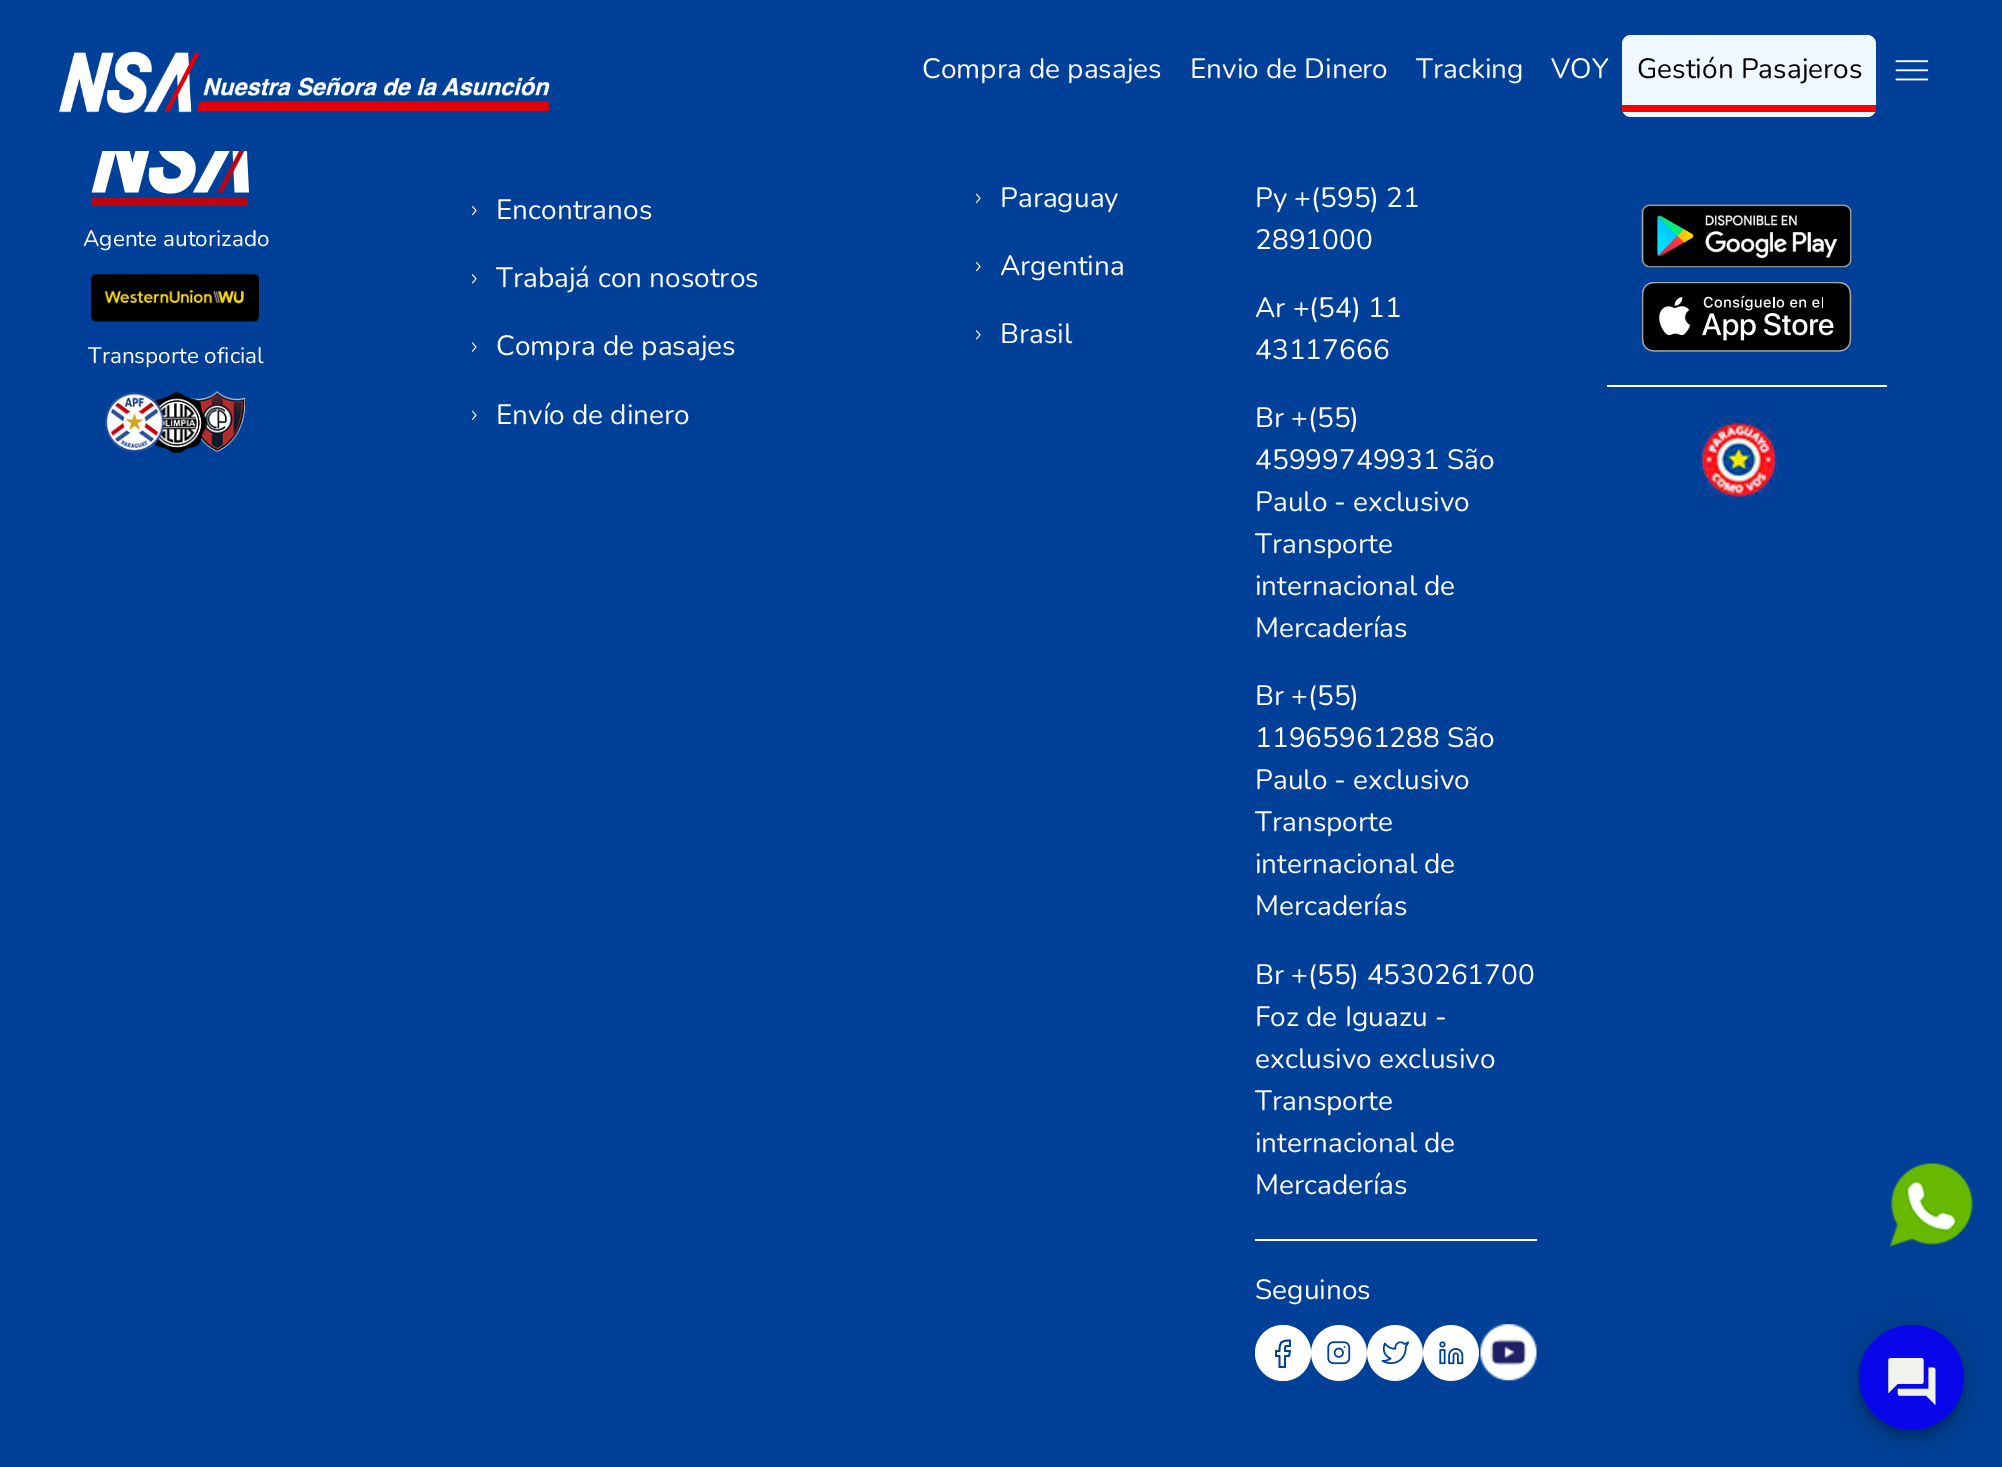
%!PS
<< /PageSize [2002 1467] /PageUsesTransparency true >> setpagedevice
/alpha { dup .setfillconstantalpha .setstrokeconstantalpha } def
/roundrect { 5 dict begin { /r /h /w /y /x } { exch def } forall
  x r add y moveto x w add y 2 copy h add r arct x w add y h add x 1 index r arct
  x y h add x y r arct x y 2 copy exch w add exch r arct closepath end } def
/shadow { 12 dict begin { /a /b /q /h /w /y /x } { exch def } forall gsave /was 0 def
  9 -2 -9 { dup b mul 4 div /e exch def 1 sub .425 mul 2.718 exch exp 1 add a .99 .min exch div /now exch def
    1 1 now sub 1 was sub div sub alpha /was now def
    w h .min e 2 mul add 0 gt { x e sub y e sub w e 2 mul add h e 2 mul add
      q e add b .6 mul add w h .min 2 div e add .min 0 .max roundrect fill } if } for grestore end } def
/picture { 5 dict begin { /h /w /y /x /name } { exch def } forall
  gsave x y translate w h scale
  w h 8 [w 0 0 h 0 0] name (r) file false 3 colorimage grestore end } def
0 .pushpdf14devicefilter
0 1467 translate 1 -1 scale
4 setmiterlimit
0 0.251 0.596 setrgbcolor
0 0 2002 1467 rectfill
(img1.rgb) 59 51 491 63 picture
/Nunito-Regular [28 0 0 -28 0 0] selectfont
1 setgray
922 78 moveto (Compra de pasajes) show
1190 78 moveto (Envio de Dinero) show
1416 78 moveto (Tracking) show
1551 78 moveto (VOY) show
0.941 0.973 1 setrgbcolor
1622 35 254 82 9 roundrect fill
1 0 0 setrgbcolor
1622 105 254 7 rectfill
0 setgray
1637 78 moveto (Gestión Pasajeros) show
(img2.rgb) 1895 60 34 21 picture
(img3.rgb) 91 151 158 55 picture
/Nunito-Regular [22.5 0 0 -22.5 0 0] selectfont
1 setgray
83 246 moveto (Agente autorizado) show
(img4.rgb) 91 274 168 48 picture
88 363 moveto (Transporte oficial) show
(img5.rgb) 105 391 140 62 picture
(img6.rgb) 472 206 5 10 picture
/Nunito-Regular [28 0 0 -28 0 0] selectfont
496 219 moveto (Encontranos) show
(img7.rgb) 472 274 5 10 picture
496 287 moveto (Trabajá con nosotros) show
(img8.rgb) 472 342 5 10 picture
496 355 moveto (Compra de pasajes) show
(img9.rgb) 472 410 5 10 picture
496 424 moveto (Envío de dinero) show
(img9.rgb) 976 193 5 10 picture
1000 207 moveto (Paraguay) show
(img6.rgb) 976 262 5 10 picture
1000 275 moveto (Argentina) show
(img7.rgb) 976 330 5 10 picture
1000 343 moveto (Brasil) show
1255 207 moveto (Py +\(595\) 21) show
1255 249 moveto (2891000) show
1255 317 moveto (Ar +\(54\) 11) show
1255 359 moveto (43117666) show
1255 427 moveto (Br +\(55\)) show
1255 469 moveto (45999749931 São) show
1255 511 moveto (Paulo - exclusivo) show
1255 553 moveto (Transporte) show
1255 595 moveto (internacional de) show
1255 637 moveto (Mercaderías) show
1255 705 moveto (Br +\(55\)) show
1255 747 moveto (11965961288 São) show
1255 789 moveto (Paulo - exclusivo) show
1255 831 moveto (Transporte) show
1255 873 moveto (internacional de) show
1255 915 moveto (Mercaderías) show
1255 984 moveto (Br +\(55\) 4530261700) show
1255 1026 moveto (Foz de Iguazu -) show
1255 1068 moveto (exclusivo exclusivo) show
1255 1110 moveto (Transporte) show
1255 1152 moveto (internacional de) show
1255 1194 moveto (Mercaderías) show
1255 1239 282 2 rectfill
1255 1299 moveto (Seguinos) show
newpath 1283 1353 28 0 360 arc closepath fill
0 0.251 0.596 setrgbcolor
1.8 setlinewidth
1 setlinecap
1 setlinejoin
newpath 1290 1340.5 moveto 1281 1340.5 1279.5 1342 1279.5 1351 curveto 1276 1351 lineto 1276 1356 lineto 1279.5 1356 lineto 1279.5 1367 lineto 1285 1367 lineto 1285 1356 lineto 1289 1356 lineto 1290 1351 lineto 1285 1351 lineto 1285 1345 1284.5 1346 1290 1346 curveto closepath stroke
(img10.rgb) 1311 1325 56 56 picture
(img11.rgb) 1367 1325 56 56 picture
(img12.rgb) 1423 1325 56 56 picture
(img13.rgb) 1480 1324 57 57 picture
(img14.rgb) 1641 204 211 64 picture
(img15.rgb) 1642 282 210 70 picture
1 setgray
1607 385 280 2 rectfill
(img16.rgb) 1685 414 101 85 picture
(img17.rgb) 1889 1163 84 84 picture
0 setgray
1859 1327 105 105 52.5 16 0.12 shadow
1859 1335 105 105 52.5 9 0.14 shadow
1860 1332 102 101 50.5 4.5 0.2 shadow
0.039 0.024 0.918 setrgbcolor
newpath 1911.5 1377.5 52.5 0 360 arc closepath fill
(img18.rgb) 1888 1358 48 47 picture
.poppdf14devicefilter showpage
